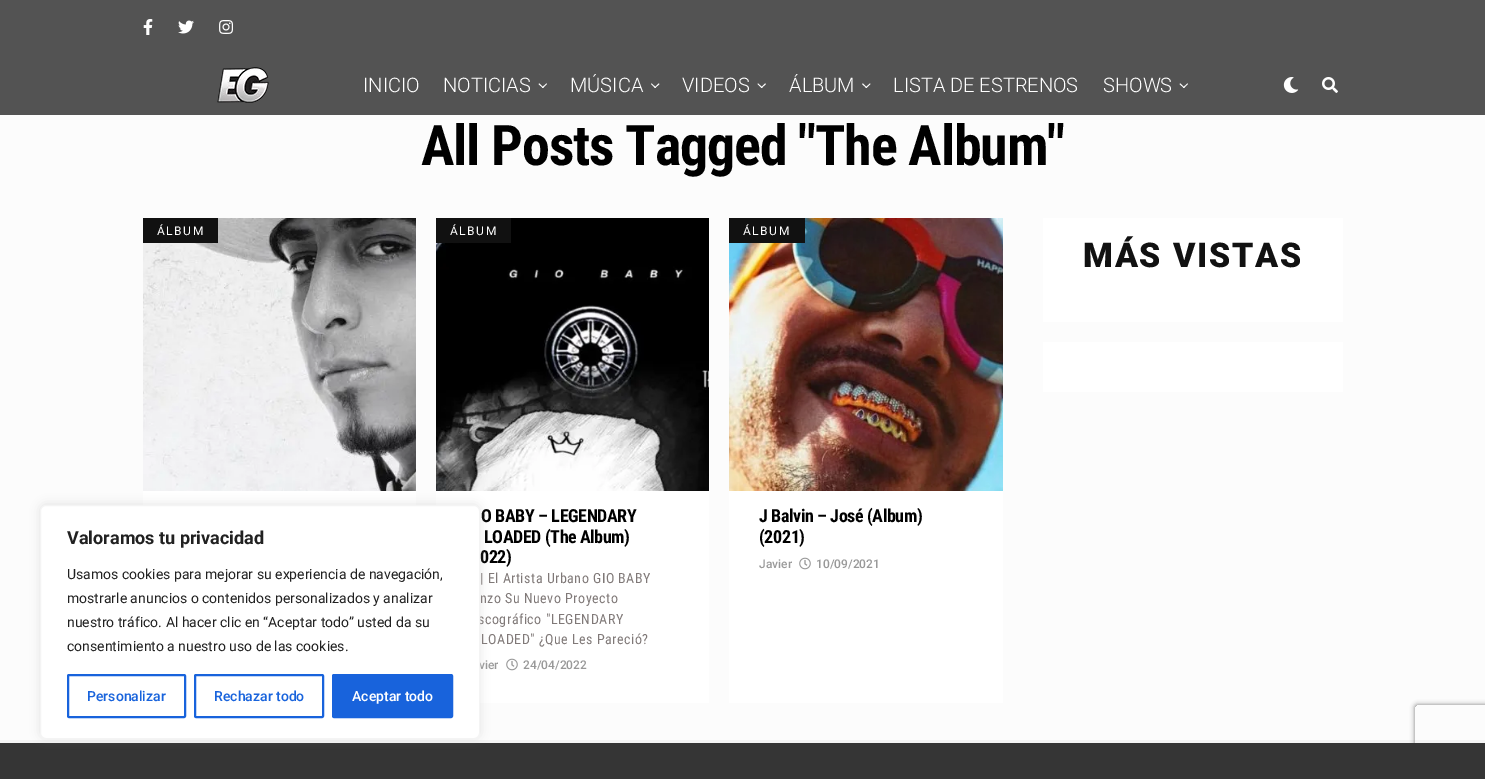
%!PS
<< /PageSize [1485 779] /PageUsesTransparency true >> setpagedevice
/alpha { dup .setfillconstantalpha .setstrokeconstantalpha } def
/roundrect { 5 dict begin { /r /h /w /y /x } { exch def } forall
  x r add y moveto x w add y 2 copy h add r arct x w add y h add x 1 index r arct
  x y h add x y r arct x y 2 copy exch w add exch r arct closepath end } def
/shadow { 12 dict begin { /a /b /q /h /w /y /x } { exch def } forall gsave /was 0 def
  9 -2 -9 { dup b mul 4 div /e exch def 1 sub .425 mul 2.718 exch exp 1 add a .99 .min exch div /now exch def
    1 1 now sub 1 was sub div sub alpha /was now def
    w h .min e 2 mul add 0 gt { x e sub y e sub w e 2 mul add h e 2 mul add
      q e add b .6 mul add w h .min 2 div e add .min 0 .max roundrect fill } if } for grestore end } def
/picture { 5 dict begin { /h /w /y /x /name } { exch def } forall
  gsave x y translate w h scale
  w h 8 [w 0 0 h 0 0] name (r) file false 3 colorimage grestore end } def
0 .pushpdf14devicefilter
0 779 translate 1 -1 scale
4 setmiterlimit
0.988 setgray
0 0 1485 779 rectfill
0.325 setgray
0 0 1485 115 rectfill
(img1.rgb) 143 19 10 16 picture
(img2.rgb) 178 20 16 14 picture
(img3.rgb) 219 20 14 14 picture
(img4.rgb) 217 67 52 36 picture
/Roboto-Light [20 0 0 -20 0 0] selectfont
1 setgray
363 92 moveto (INICIO) show
443 92 moveto (NOTICIAS) show
newpath 546.5 83.5 moveto 547 84 lineto 543 88 lineto 542 87.5 lineto closepath fill
newpath 539.5 83.5 moveto 543.5 87.5 lineto 543 88 lineto 538.5 84 lineto closepath fill
570 92 moveto (MÚSICA) show
newpath 658.5 83.5 moveto 659.5 84 lineto 655 88 lineto 654.5 87.5 lineto closepath fill
newpath 651.5 83.5 moveto 656 87.5 lineto 655 88 lineto 651 84 lineto closepath fill
682 92 moveto (VIDEOS) show
newpath 765 83.5 moveto 766 84 lineto 761.5 88 lineto 761 87.5 lineto closepath fill
newpath 758 83.5 moveto 762.5 87.5 lineto 761.5 88 lineto 757.5 84 lineto closepath fill
789 92 moveto (ÁLBUM) show
newpath 870 83.5 moveto 870.5 84 lineto 866.5 88 lineto 865.5 87.5 lineto closepath fill
newpath 863 83.5 moveto 867 87.5 lineto 866.5 88 lineto 862 84 lineto closepath fill
893 92 moveto (LISTA DE ESTRENOS) show
1103 92 moveto (SHOWS) show
newpath 1187.5 83.5 moveto 1188 84 lineto 1184 88 lineto 1183 87.5 lineto closepath fill
newpath 1180.5 83.5 moveto 1184.5 87.5 lineto 1184 88 lineto 1179.5 84 lineto closepath fill
(img5.rgb) 1283 77 16 16 picture
(img6.rgb) 1322 77 16 16 picture
/RobotoCondensed-Bold [56 0 0 -56 0 0] selectfont
0 setgray
421 165 moveto -1.1 0 (All Posts Tagged "The Album") ashow
1 setgray
143 491 273 14 rectfill
(img7.rgb) 143 218 273 273 picture
0.067 setgray
143 218 75 25 rectfill
/Roboto-Regular [12 0 0 -12 0 0] selectfont
1 setgray
157 235 moveto 1.5 0 (ÁLBUM) ashow
436 491 273 212 rectfill
(img8.rgb) 436 218 273 273 picture
0.067 setgray
436 218 75 25 rectfill
1 setgray
450 235 moveto 1.5 0 (ÁLBUM) ashow
/RobotoCondensed-Bold [18 0 0 -18 0 0] selectfont
0 setgray
481 522 moveto -0.4 0 (O BABY – LEGENDARY) ashow
484 543 moveto -0.4 0 (LOADED \(The Album\)) ashow
480 563 moveto -0.4 0 (022\)) ashow
/RobotoCondensed-Regular [14 0 0 -14 0 0] selectfont
0.502 0.475 0.471 setrgbcolor
480 583 moveto 0.5 0 (| El Artista Urbano GIO BABY) ashow
480 603 moveto 0.5 0 (nzo Su Nuevo Proyecto) ashow
478 624 moveto 0.5 0 (scográfico "LEGENDARY) ashow
481 644 moveto 0.5 0 (LOADED" ¿Que Les Pareció?) ashow
/Roboto-Medium [12 0 0 -12 0 0] selectfont
0.6 setgray
479 669 moveto (vier) show
(img9.rgb) 506 658 12 13 picture
523 669 moveto (24/04/2022) show
1 setgray
729 491 274 212 rectfill
(img10.rgb) 729 218 274 273 picture
0.067 setgray
729 218 76 25 rectfill
/Roboto-Regular [12 0 0 -12 0 0] selectfont
1 setgray
743 235 moveto 1.5 0 (ÁLBUM) ashow
/RobotoCondensed-Bold [18 0 0 -18 0 0] selectfont
0 setgray
759 522 moveto -0.4 0 (J Balvin – José \(Album\)) ashow
759 543 moveto -0.4 0 (\(2021\)) ashow
/Roboto-Medium [12 0 0 -12 0 0] selectfont
0.6 setgray
759 568 moveto (Javier) show
(img9.rgb) 799 557 12 13 picture
816 568 moveto (10/09/2021) show
1 setgray
1043 218 300 104 rectfill
/Roboto-Black [34 0 0 -34 0 0] selectfont
0.067 setgray
1083 267 moveto 1.75 0 (MÁS VISTAS) ashow
1 setgray
1043 342 300 50 rectfill
gsave
newpath 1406 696 moveto 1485 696 lineto 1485 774 lineto 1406 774 lineto closepath 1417 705 moveto 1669 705 lineto 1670 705 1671 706 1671 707 curveto 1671 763 lineto 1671 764 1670 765 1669 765 curveto 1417 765 lineto 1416 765 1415 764 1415 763 curveto 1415 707 lineto 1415 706 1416 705 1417 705 curveto closepath eoclip newpath
0.502 setgray
1415 705 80 60 2 2.5 1 shadow
grestore
0.208 setgray
0 743 1485 36 rectfill
0.03 alpha
0 setgray
0 740 1485 3 rectfill
1 alpha
0.675 0.671 0.671 setrgbcolor
40 504 440 234 6 5 0.3 shadow
1 setgray
40.5 505.5 439 233 5.5 roundrect gsave fill grestore
0.957 setgray
stroke
/Roboto-Bold [18 0 0 -18 0 0] selectfont
0.129 setgray
67 544 moveto (Valoramos tu privacidad) show
/Roboto-Regular [14 0 0 -14 0 0] selectfont
67 579 moveto (Usamos cookies para mejorar su experiencia de navegación,) show
67 603 moveto (mostrarle anuncios o contenidos personalizados y analizar) show
67 627 moveto (nuestro tráfico. Al hacer clic en “Aceptar todo” usted da su) show
67 651 moveto (consentimiento a nuestro uso de las cookies.) show
0.094 0.388 0.863 setrgbcolor
2 setlinewidth
68 675 117 42 1 roundrect stroke
/Roboto-Medium [14 0 0 -14 0 0] selectfont
87 701 moveto (Personalizar) show
195 675 128 42 1 roundrect stroke
214 701 moveto (Rechazar todo) show
333 675 119 42 1 roundrect gsave fill grestore
stroke
1 setgray
352 701 moveto (Aceptar todo) show
.poppdf14devicefilter showpage
